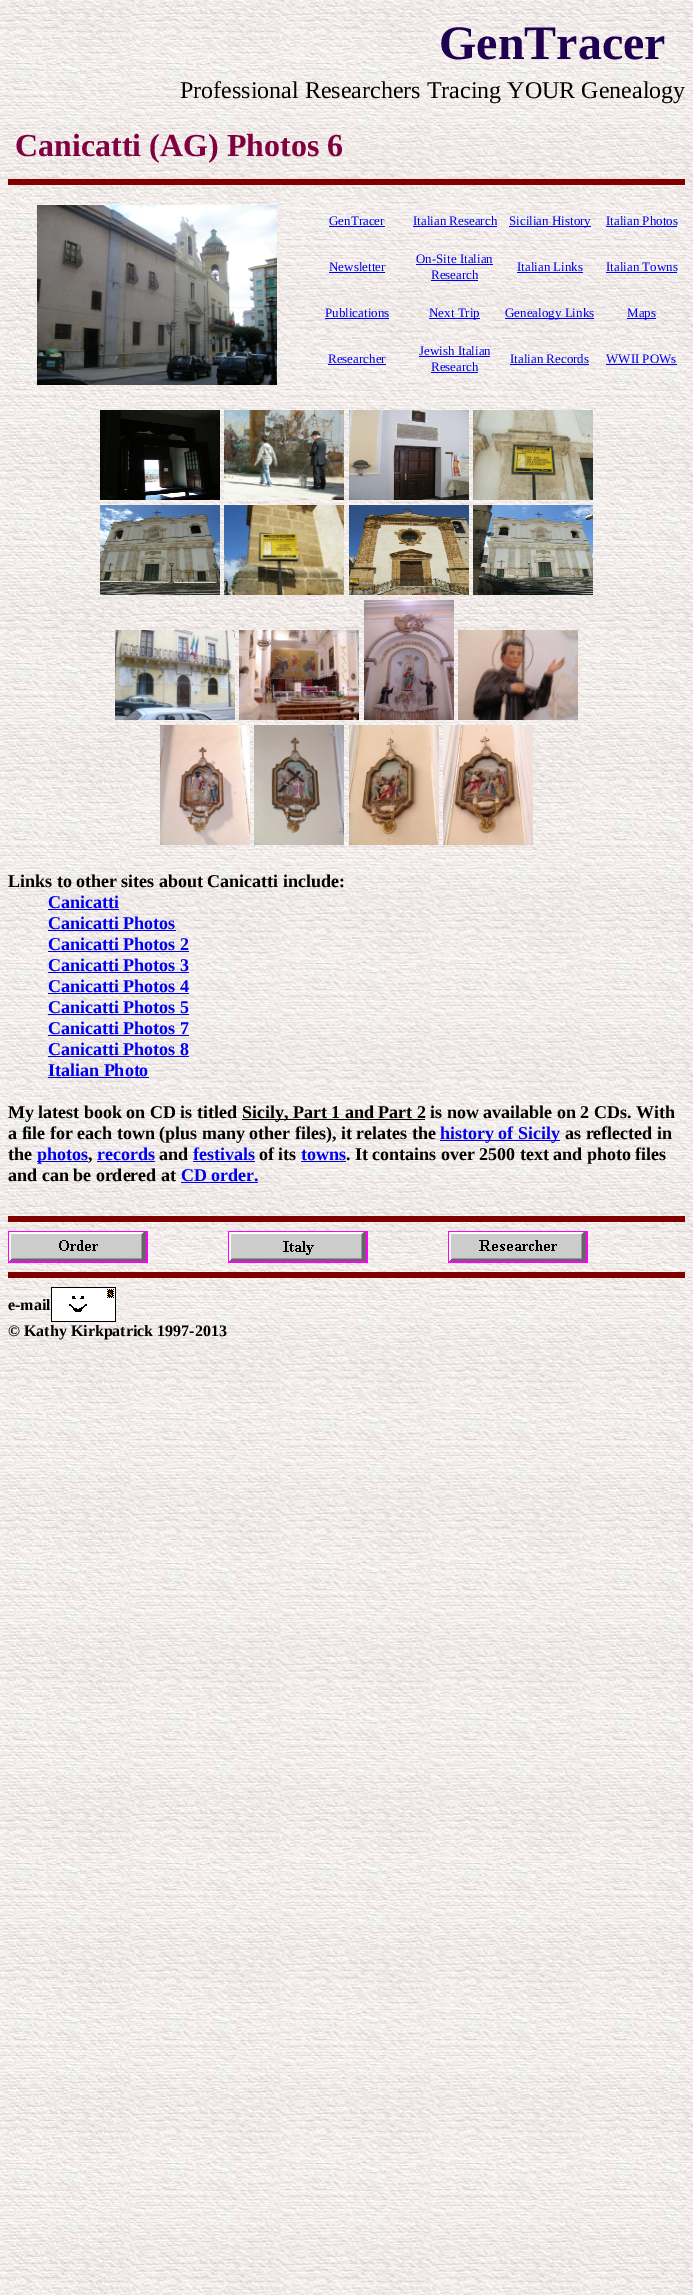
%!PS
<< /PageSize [693 2295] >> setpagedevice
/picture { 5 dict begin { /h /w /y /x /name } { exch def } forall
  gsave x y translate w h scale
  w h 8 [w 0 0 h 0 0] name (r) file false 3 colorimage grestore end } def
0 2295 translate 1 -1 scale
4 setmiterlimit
1 setgray
0 0 693 2295 rectfill
(img1.rgb) 0 0 693 2295 picture
/LiberationSerif-Bold [48 0 0 -48 0 0] selectfont
0.125 0 0.314 setrgbcolor
439 59 moveto (GenTracer) show
/LiberationSerif-Regular [24 0 0 -24 0 0] selectfont
0 setgray
180 98 moveto (Professional Researchers Tracing YOUR Genealogy) show
/LiberationSerif-Bold [32 0 0 -32 0 0] selectfont
0.502 0 0.251 setrgbcolor
15 156 moveto (Canicatti \(AG\) Photos 6) show
0.502 0 0 setrgbcolor
8 179 677 6 rectfill
(img2.rgb) 37 205 240 180 picture
/LiberationSerif-Regular [13 0 0 -13 0 0] selectfont
0 0 0.933 setrgbcolor
329 225 moveto (GenTracer) show
329 226 56 1 rectfill
413 225 moveto (Italian Research) show
413 226 84 1 rectfill
509 226 82 1 rectfill
509 225 moveto (Sicilian History) show
606 225 moveto (Italian Photos) show
606 226 71 1 rectfill
329 271 moveto (Newsletter) show
329 272 56 1 rectfill
416 263 moveto (On-Site Italian) show
416 264 77 1 rectfill
431 279 moveto (Research) show
431 280 47 1 rectfill
517 271 moveto (Italian Links) show
517 272 66 1 rectfill
606 271 moveto (Italian Towns) show
606 272 71 1 rectfill
325 317 moveto (Publications) show
325 318 64 1 rectfill
429 318 51 1 rectfill
429 317 moveto (Next Trip) show
505 318 89 1 rectfill
505 317 moveto (Genealogy Links) show
627 318 29 1 rectfill
627 317 moveto (Maps) show
328 363 moveto (Researcher) show
328 364 58 1 rectfill
419 355 moveto (Jewish Italian) show
419 356 71 1 rectfill
431 371 moveto (Research) show
431 372 47 1 rectfill
510 363 moveto (Italian Records) show
510 364 79 1 rectfill
606 363 moveto (WWII POWs) show
606 364 71 1 rectfill
(img3.rgb) 100 410 120 90 picture
(img4.rgb) 224 410 120 90 picture
(img5.rgb) 349 410 120 90 picture
(img6.rgb) 473 410 120 90 picture
(img7.rgb) 100 505 120 90 picture
(img8.rgb) 224 505 120 90 picture
(img9.rgb) 349 505 120 90 picture
(img10.rgb) 473 505 120 90 picture
(img11.rgb) 115 630 120 90 picture
(img12.rgb) 239 630 120 90 picture
(img13.rgb) 364 600 90 120 picture
(img14.rgb) 458 630 120 90 picture
(img15.rgb) 160 725 90 120 picture
(img16.rgb) 254 725 90 120 picture
(img17.rgb) 349 725 90 120 picture
(img18.rgb) 443 725 90 120 picture
/LiberationSerif-Bold [18 0 0 -18 0 0] selectfont
0 setgray
8 887 moveto (Links to other sites about Canicatti include:) show
0 0 0.933 setrgbcolor
48 908 moveto (Canicatti) show
48 909 71 1 rectfill
48 929 moveto (Canicatti Photos) show
48 930 128 1 rectfill
48 950 moveto (Canicatti Photos 2) show
48 951 141 1 rectfill
48 971 moveto (Canicatti Photos 3) show
48 972 141 1 rectfill
48 992 moveto (Canicatti Photos 4) show
48 993 141 1 rectfill
48 1013 moveto (Canicatti Photos 5) show
48 1014 141 1 rectfill
48 1034 moveto (Canicatti Photos 7) show
48 1035 141 1 rectfill
48 1055 moveto (Canicatti Photos 8) show
48 1056 141 1 rectfill
48 1076 moveto (Italian Photo) show
48 1077 101 1 rectfill
0 setgray
8 1118 moveto (My latest book on CD is titled) show
242 1119 183 1 rectfill
242 1118 moveto (Sicily, Part 1 and Part 2 is now available on 2 CDs. With) show
8 1139 moveto (a file for each town \(plus many other files\), it relates the) show
0 0 0.933 setrgbcolor
440 1140 120 1 rectfill
440 1139 moveto (history of Sicily) show
0 setgray
565 1139 moveto (as reflected in) show
8 1160 moveto (the) show
0 0 0.933 setrgbcolor
37 1161 51 1 rectfill
37 1160 moveto (photos) show
0 setgray
88 1160 moveto (,) show
0 0 0.933 setrgbcolor
97 1160 moveto (records) show
97 1161 58 1 rectfill
0 setgray
159 1160 moveto (and) show
0 0 0.933 setrgbcolor
193 1160 moveto (festivals) show
193 1161 62 1 rectfill
0 setgray
259 1160 moveto (of its) show
0 0 0.933 setrgbcolor
301 1160 moveto (towns) show
301 1161 45 1 rectfill
0 setgray
346 1160 moveto (. It contains over 2500 text and photo files) show
8 1181 moveto (and can be ordered at) show
0 0 0.933 setrgbcolor
181 1181 moveto (CD order.) show
181 1182 77 1 rectfill
0.502 0 0 setrgbcolor
8 1216 677 6 rectfill
(img19.rgb) 8 1231 140 32 picture
(img20.rgb) 228 1231 140 32 picture
(img21.rgb) 448 1231 140 32 picture
8 1272 677 6 rectfill
/LiberationSerif-Bold [16 0 0 -16 0 0] selectfont
0 setgray
8 1310 moveto (e-mail) show
(img22.rgb) 51 1287 65 35 picture
8 1336 moveto (© Kathy Kirkpatrick 1997-2013) show
showpage
